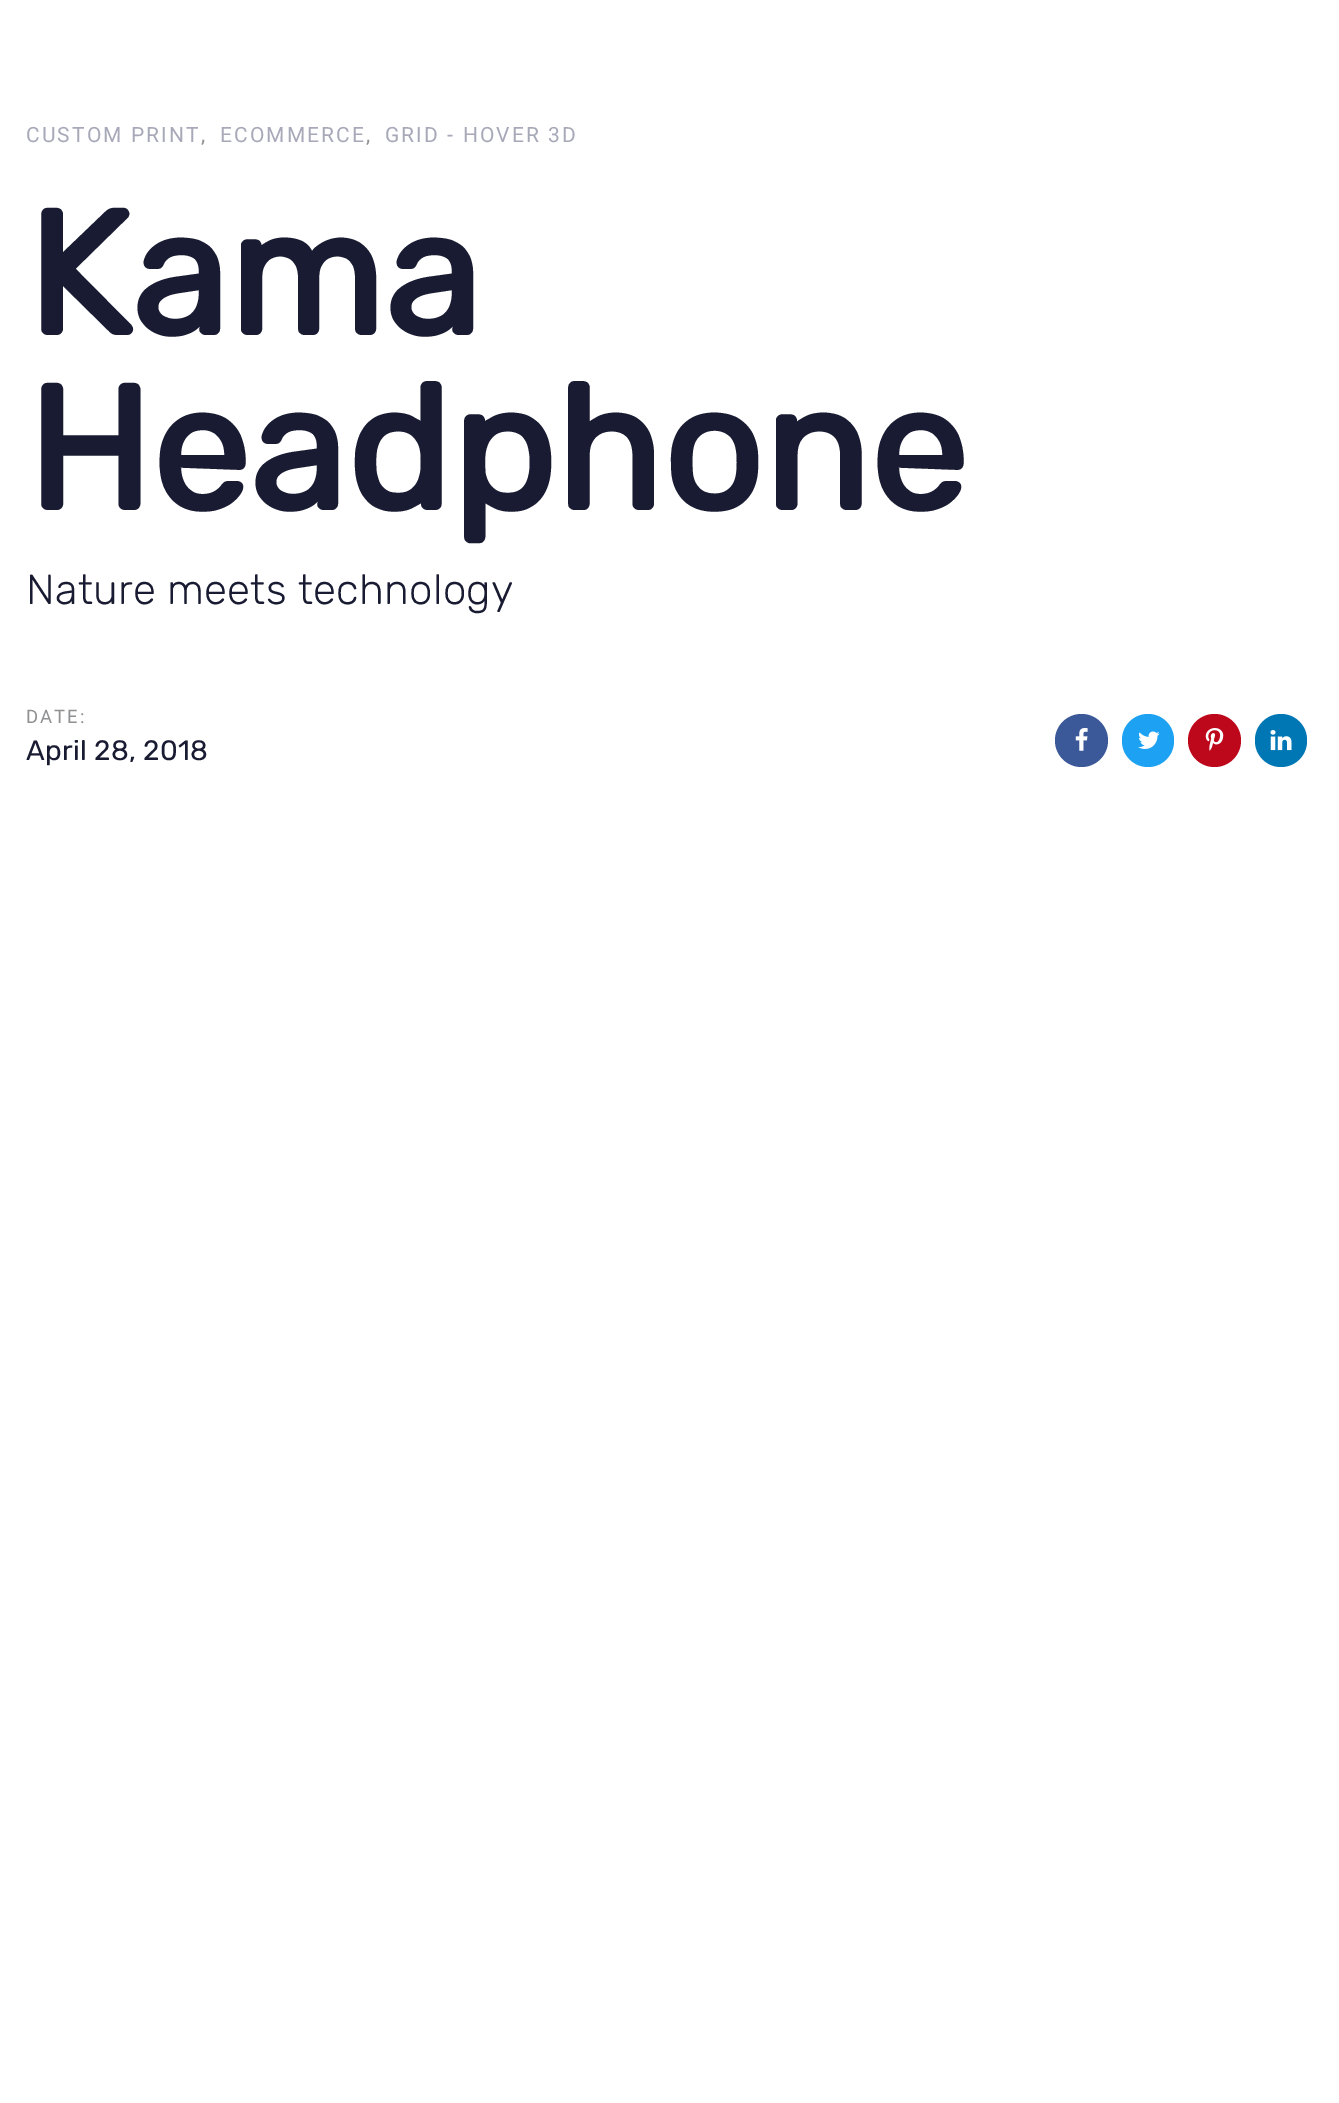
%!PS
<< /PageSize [1339 2103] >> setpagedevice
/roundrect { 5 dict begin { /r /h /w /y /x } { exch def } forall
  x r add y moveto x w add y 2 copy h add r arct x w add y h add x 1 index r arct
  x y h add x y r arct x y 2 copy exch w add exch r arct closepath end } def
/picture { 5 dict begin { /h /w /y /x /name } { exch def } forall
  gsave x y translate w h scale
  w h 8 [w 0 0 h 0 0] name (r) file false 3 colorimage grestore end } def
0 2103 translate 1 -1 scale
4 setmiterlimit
1 setgray
0 0 1339 2103 rectfill
/Roboto-Regular [21 0 0 -21 0 0] selectfont
0.655 0.663 0.722 setrgbcolor
26 142 moveto 2.1 0 (CUSTOM PRINT) ashow
0.561 0.569 0.576 setrgbcolor
201 142 moveto 2.1 0 (,) ashow
0.655 0.663 0.722 setrgbcolor
220 142 moveto 2.1 0 (ECOMMERCE) ashow
0.561 0.569 0.576 setrgbcolor
366 142 moveto 2.1 0 (,) ashow
0.655 0.663 0.722 setrgbcolor
385 142 moveto 2.1 0 (GRID - HOVER 3D) ashow
/Rubik-Bold [175 0 0 -175 0 0] selectfont
0.094 0.106 0.192 setrgbcolor
26 335 moveto 0.25 0 (Kama) ashow
26 510 moveto 0.25 0 (Headphone) ashow
/Rubik-Light [42 0 0 -42 0 0] selectfont
26 604 moveto 0.25 0 (Nature meets technology) ashow
/Roboto-Regular [18.5 0 0 -18.5 0 0] selectfont
0.561 0.569 0.576 setrgbcolor
26 723 moveto 2 0 (DATE:) ashow
/Rubik-Regular [28 0 0 -28 0 0] selectfont
0.094 0.106 0.192 setrgbcolor
26 760 moveto 0.25 0 (April 28, 2018) ashow
0.231 0.349 0.596 setrgbcolor
newpath 1081.5 740.5 26.5 0 360 arc closepath fill
(img1.rgb) 1075 728 13 23 picture
0.114 0.631 0.949 setrgbcolor
1122 714 52 53 26 roundrect fill
(img2.rgb) 1138 731 22 18 picture
0.741 0.031 0.11 setrgbcolor
newpath 1214.5 740.5 26.5 0 360 arc closepath fill
(img3.rgb) 1205 728 19 23 picture
0 0.467 0.71 setrgbcolor
1255 714 52 53 26 roundrect fill
(img4.rgb) 1270 730 22 21 picture
showpage
